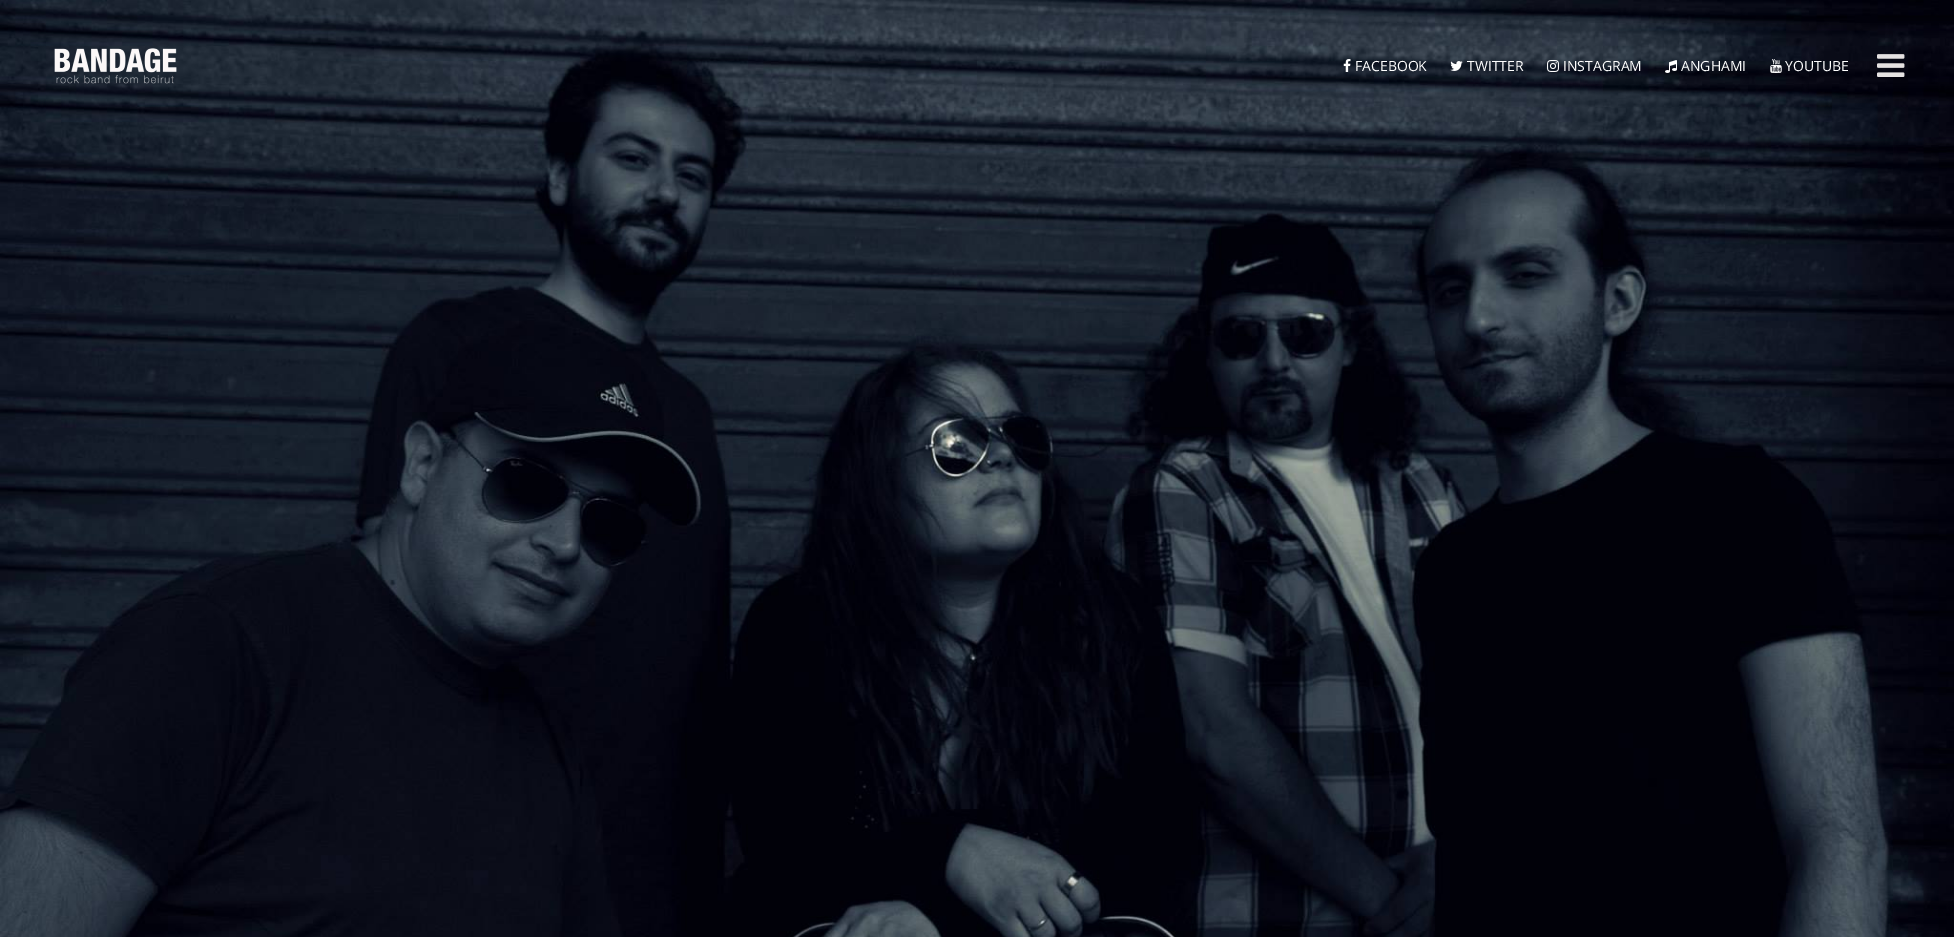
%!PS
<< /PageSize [1954 937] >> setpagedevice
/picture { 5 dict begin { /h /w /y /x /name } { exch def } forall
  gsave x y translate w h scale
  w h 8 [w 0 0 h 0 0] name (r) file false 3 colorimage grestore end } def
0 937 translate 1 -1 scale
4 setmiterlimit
1 setgray
0 0 1954 937 rectfill
(img1.rgb) 0 0 1954 937 picture
(img2.rgb) 54 48 123 36 picture
(img3.rgb) 1343 59 8 13 picture
/OpenSans-Regular [14 0 0 -14 0 0] selectfont
1355 71 moveto (FACEBOOK) show
(img4.rgb) 1450 61 13 10 picture
1467 71 moveto (TWITTER) show
(img5.rgb) 1547 60 12 12 picture
1563 71 moveto (INSTAGRAM) show
(img6.rgb) 1665 60 12 13 picture
1681 71 moveto (ANGHAMI) show
(img7.rgb) 1770 59 12 14 picture
1785 71 moveto (YOUTUBE) show
(img8.rgb) 1877 54 28 23 picture
showpage
